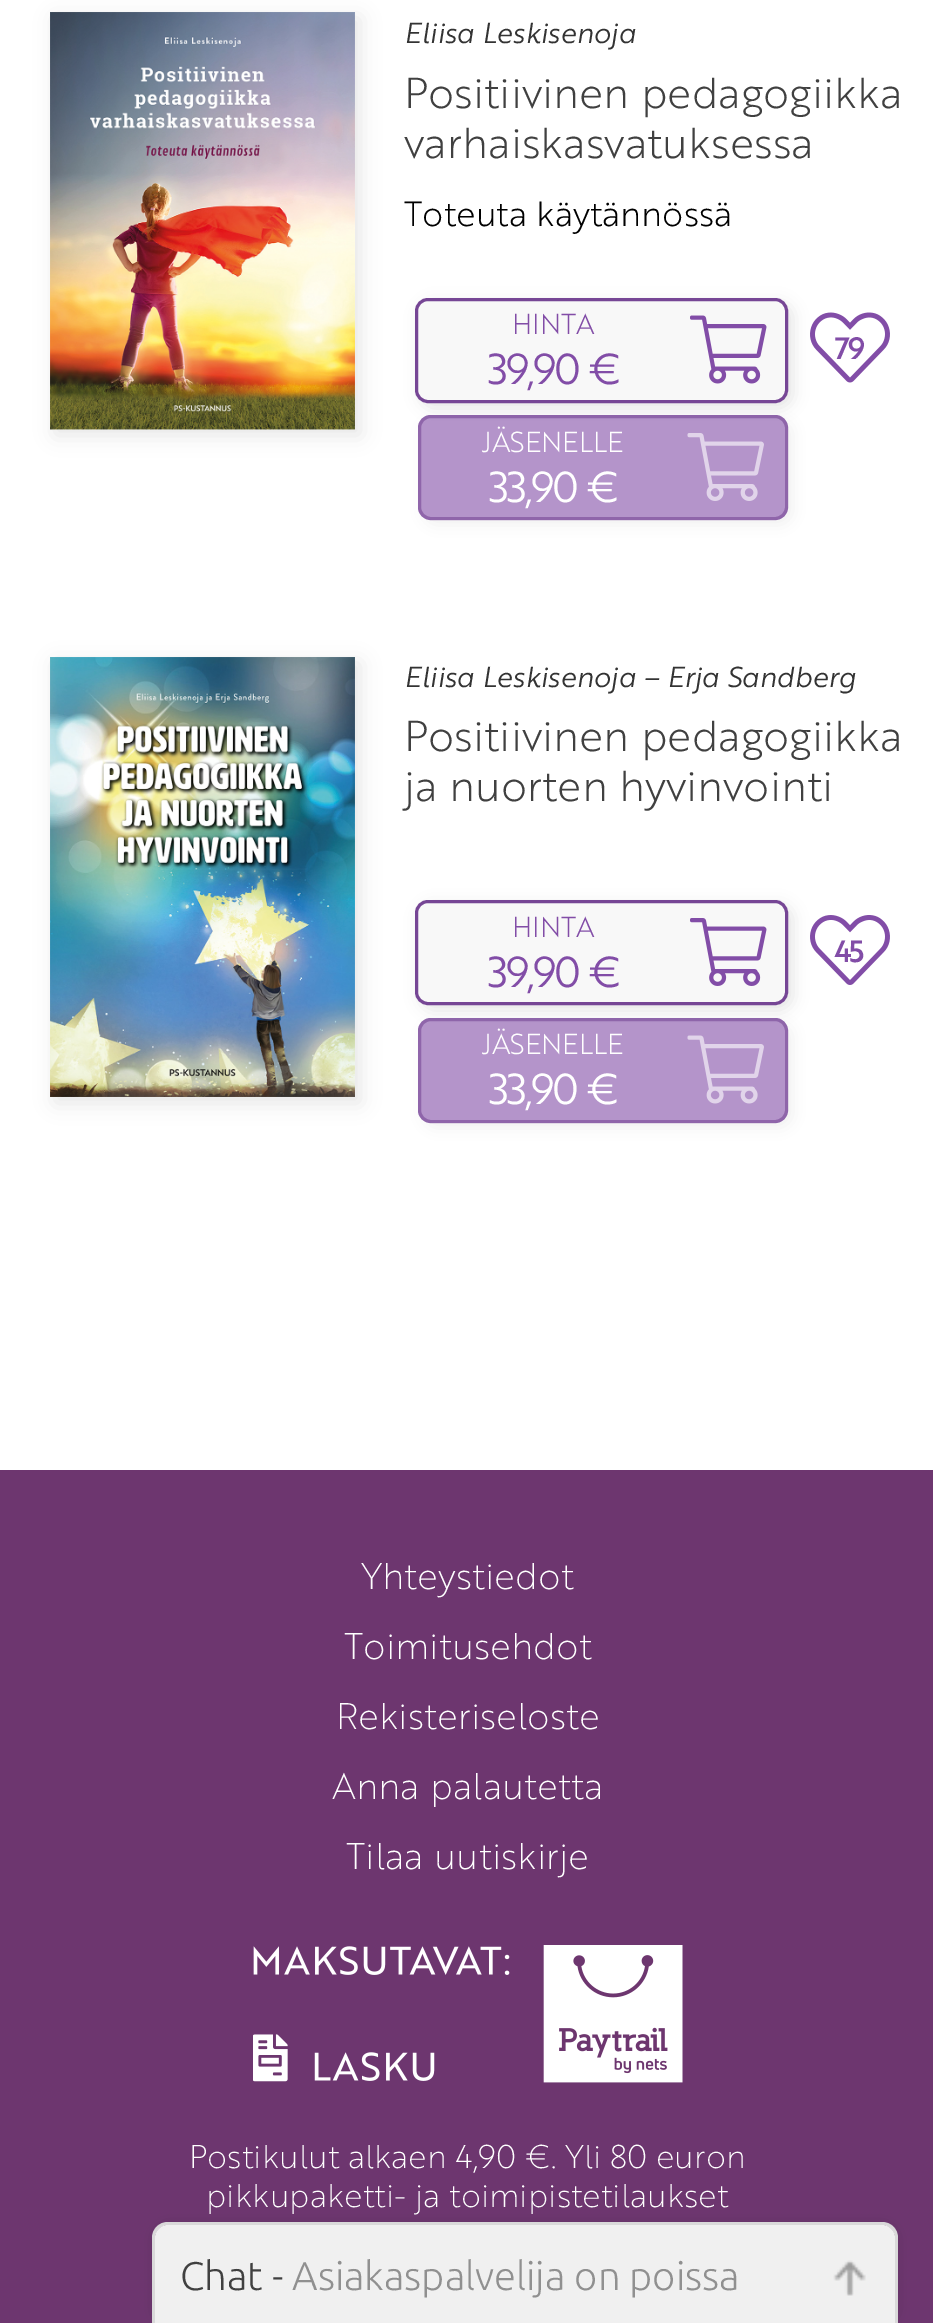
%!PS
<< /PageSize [933 2323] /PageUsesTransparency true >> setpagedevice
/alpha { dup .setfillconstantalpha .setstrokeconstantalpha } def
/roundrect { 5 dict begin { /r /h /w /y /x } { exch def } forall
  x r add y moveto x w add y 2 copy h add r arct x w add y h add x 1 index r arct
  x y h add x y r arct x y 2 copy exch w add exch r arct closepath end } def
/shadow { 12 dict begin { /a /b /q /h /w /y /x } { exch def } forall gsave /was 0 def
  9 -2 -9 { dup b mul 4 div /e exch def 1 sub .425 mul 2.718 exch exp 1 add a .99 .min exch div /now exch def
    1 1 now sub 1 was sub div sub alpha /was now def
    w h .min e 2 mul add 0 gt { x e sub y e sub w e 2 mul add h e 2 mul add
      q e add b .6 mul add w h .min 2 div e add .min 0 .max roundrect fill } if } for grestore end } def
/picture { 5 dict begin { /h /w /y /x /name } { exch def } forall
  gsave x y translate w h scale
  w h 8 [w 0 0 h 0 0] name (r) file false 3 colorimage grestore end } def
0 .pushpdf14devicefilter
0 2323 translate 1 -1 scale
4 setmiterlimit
1 setgray
0 0 933 2323 rectfill
0 setgray
55 18 305 417 0 10 0.1 shadow
(img1.rgb) 50 12 305 418 picture
/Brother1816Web-Italic [28 0 0 -28 0 0] selectfont
0.2 setgray
404 43 moveto (Eliisa Leskisenoja) show
/Brother1816Web-Light [42 0 0 -42 0 0] selectfont
0.251 setgray
404 108 moveto (Positiivinen pedagogiikka) show
404 158 moveto (varhaiskasvatuksessa) show
/Brother1816Web-Light [34 0 0 -34 0 0] selectfont
0 setgray
404 226 moveto (Toteuta käytännössä) show
420 303 373 105 13 7.5 0.1 shadow
0.973 setgray
416.5 299.5 370 102 11.5 roundrect gsave fill grestore
0.463 0.275 0.584 setrgbcolor
3 setlinewidth
stroke
/Brother1816Web-Light [28 0 0 -28 0 0] selectfont
0.51 0.302 0.655 setrgbcolor
512 334 moveto (HINTA) show
/Brother1816Web-Regular [42 0 0 -42 0 0] selectfont
488 384 moveto -2 0 (39,90 €) ashow
(img2.rgb) 690 315 77 69 picture
gsave
newpath 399 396 moveto 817 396 lineto 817 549 lineto 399 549 lineto closepath 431 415 moveto 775 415 lineto 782 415 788 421 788 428 curveto 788 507 lineto 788 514 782 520 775 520 curveto 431 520 lineto 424 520 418 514 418 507 curveto 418 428 lineto 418 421 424 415 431 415 curveto closepath eoclip newpath
0 setgray
423 420 370 105 13 7.5 0.06 shadow
grestore
0.6 alpha
418 415 370 105 13 roundrect fill
0.463 0.275 0.584 setrgbcolor
419.5 416.5 367 102 11.5 roundrect stroke
/Brother1816Web-Light [28 0 0 -28 0 0] selectfont
1 alpha
1 setgray
482 452 moveto (JÄSENELLE) show
/Brother1816Web-Regular [42 0 0 -42 0 0] selectfont
489 502 moveto -2 0 (33,90 €) ashow
(img3.rgb) 687 433 77 68 picture
(img4.rgb) 810 312 80 71 picture
/Brother1816Web-Medium [30 0 0 -30 0 0] selectfont
0.51 0.302 0.655 setrgbcolor
835 359 moveto -2 0 (79) ashow
0 setgray
55 663 305 440 0 10 0.1 shadow
(img5.rgb) 50 657 305 440 picture
/Brother1816Web-Italic [28 0 0 -28 0 0] selectfont
0.2 setgray
404 687 moveto (Eliisa Leskisenoja – Erja Sandberg) show
/Brother1816Web-Light [42 0 0 -42 0 0] selectfont
0.251 setgray
404 751 moveto (Positiivinen pedagogiikka) show
404 801 moveto (ja nuorten hyvinvointi) show
0 setgray
420 905 373 105 13 7.5 0.1 shadow
0.973 setgray
416.5 901.5 370 102 11.5 roundrect gsave fill grestore
0.463 0.275 0.584 setrgbcolor
stroke
/Brother1816Web-Light [28 0 0 -28 0 0] selectfont
0.51 0.302 0.655 setrgbcolor
512 937 moveto (HINTA) show
/Brother1816Web-Regular [42 0 0 -42 0 0] selectfont
488 987 moveto -2 0 (39,90 €) ashow
(img6.rgb) 690 918 77 68 picture
gsave
newpath 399 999 moveto 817 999 lineto 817 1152 lineto 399 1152 lineto closepath 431 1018 moveto 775 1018 lineto 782 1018 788 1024 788 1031 curveto 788 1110 lineto 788 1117 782 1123 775 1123 curveto 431 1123 lineto 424 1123 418 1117 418 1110 curveto 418 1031 lineto 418 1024 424 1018 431 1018 curveto closepath eoclip newpath
0 setgray
423 1023 370 105 13 7.5 0.06 shadow
grestore
0.6 alpha
418 1018 370 105 13 roundrect fill
0.463 0.275 0.584 setrgbcolor
419.5 1019.5 367 102 11.5 roundrect stroke
/Brother1816Web-Light [28 0 0 -28 0 0] selectfont
1 alpha
1 setgray
482 1054 moveto (JÄSENELLE) show
/Brother1816Web-Regular [42 0 0 -42 0 0] selectfont
489 1104 moveto -2 0 (33,90 €) ashow
(img7.rgb) 687 1035 77 69 picture
(img8.rgb) 810 915 80 70 picture
/Brother1816Web-Medium [30 0 0 -30 0 0] selectfont
0.51 0.302 0.655 setrgbcolor
834 962 moveto -2 0 (45) ashow
0.427 0.212 0.435 setrgbcolor
0 1470 933 853 rectfill
/Brother1816Web-Thin [36 0 0 -36 0 0] selectfont
1 setgray
361 1589 moveto (Yhteystiedot) show
344 1659 moveto (Toimitusehdot) show
336 1729 moveto (Rekisteriseloste) show
332 1799 moveto 1 0 32 (Anna palautetta) widthshow
346 1869 moveto 1 0 32 (Tilaa uutiskirje) widthshow
(img9.rgb) 253 1945 430 138 picture
/Brother1816Web-Thin [32 0 0 -32 0 0] selectfont
189 2168 moveto (Postikulut alkaen 4,90 €. Yli 80 euron) show
206 2207 moveto (pikkupaketti- ja toimipistetilaukset) show
0 setgray
153 2223 745 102 15 7.5 0.1 shadow
0.851 setgray
newpath 168 2222 moveto 882 2222 lineto 891 2222 898 2229 898 2238 curveto 898 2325 lineto 152 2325 lineto 152 2238 lineto 152 2229 159 2222 168 2222 curveto closepath 168 2225 moveto 882 2225 lineto 889 2225 895 2231 895 2238 curveto 895 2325 lineto 155 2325 lineto 155 2238 lineto 155 2231 161 2225 168 2225 curveto closepath eofill
0.941 setgray
newpath 168 2225 moveto 882 2225 lineto 889 2225 895 2231 895 2238 curveto 895 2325 lineto 155 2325 lineto 155 2238 lineto 155 2231 161 2225 168 2225 curveto closepath fill
(img10.rgb) 833 2260 33 36 picture
/Ubuntu-Light [40 0 0 -40 0 0] selectfont
0.251 setgray
180 2290 moveto (Chat -) show
0.565 setgray
292 2290 moveto (Asiakaspalvelija on poissa) show
.poppdf14devicefilter showpage
